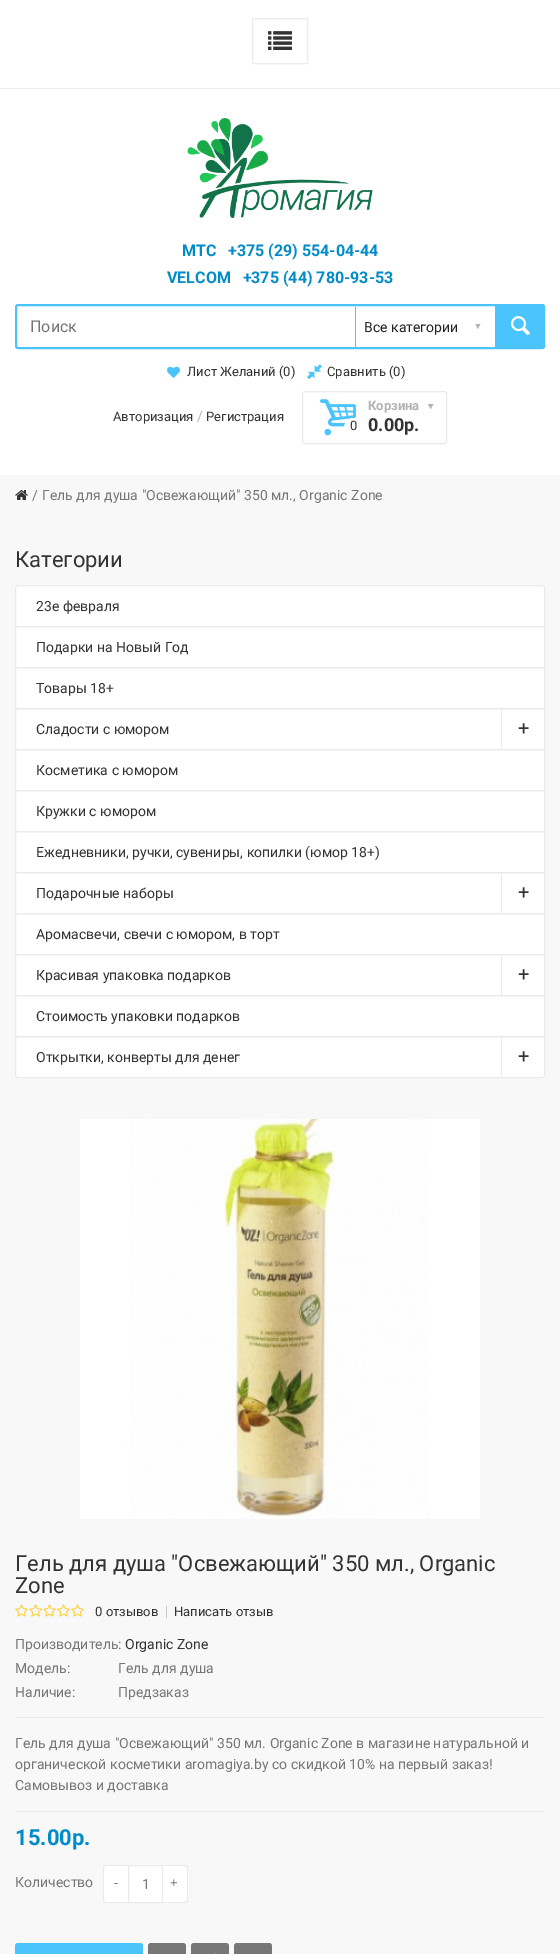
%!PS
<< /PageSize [560 1954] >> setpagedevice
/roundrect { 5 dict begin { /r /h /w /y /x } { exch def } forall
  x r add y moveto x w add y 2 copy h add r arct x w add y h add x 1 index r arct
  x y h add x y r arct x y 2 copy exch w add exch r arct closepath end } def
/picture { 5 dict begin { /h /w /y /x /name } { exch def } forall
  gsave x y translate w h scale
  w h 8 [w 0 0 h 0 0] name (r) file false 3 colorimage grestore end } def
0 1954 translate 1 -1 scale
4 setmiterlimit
0.973 setgray
0 0 560 1954 rectfill
1 setgray
0 0 560 475 rectfill
0.918 setgray
0 88 560 1 rectfill
0.922 setgray
252.5 18.5 55 45 rectstroke
(img1.rgb) 268 31 24 19 picture
(img2.rgb) 187 118 186 100 picture
/Roboto-Bold [16 0 0 -16 0 0] selectfont
0.004 0.545 0.784 setrgbcolor
182 256 moveto (MTC) show
228 256 moveto (+375 \(29\) 554-04-44) show
167 283 moveto (VELCOM   +375 \(44\) 780-93-53) show
0.29 0.769 0.98 setrgbcolor
2 setlinewidth
16 305 528 43 2 roundrect stroke
/Roboto-Regular [16 0 0 -16 0 0] selectfont
0.467 setgray
30 332 moveto (Поиск) show
(img3.rgb) 475 324 6 5 picture
0.29 0.769 0.98 setrgbcolor
355 307 1 40 rectfill
/Roboto-Regular [14 0 0 -14 0 0] selectfont
0.133 setgray
364 332 moveto (Все категории) show
0.29 0.769 0.98 setrgbcolor
newpath 495 304 moveto 542 304 lineto 543.5 304 545 305.5 545 307 curveto 545 346 lineto 545 347.5 543.5 349 542 349 curveto 495 349 lineto closepath fill
(img4.rgb) 511 316 19 20 picture
(img5.rgb) 167 366 13 12 picture
/Roboto-Regular [13 0 0 -13 0 0] selectfont
0.2 setgray
187 376 moveto (Лист Желаний \(0\)) show
(img6.rgb) 307 364 15 16 picture
327 376 moveto (Сравнить \(0\)) show
113 421 moveto (Авторизация) show
/Roboto-Regular [14 0 0 -14 0 0] selectfont
0.698 setgray
197 421 moveto (/) show
/Roboto-Regular [13 0 0 -13 0 0] selectfont
0.2 setgray
206 421 moveto (Регистрация) show
0.918 setgray
1 setlinewidth
302.5 391.5 144 52 2.5 roundrect stroke
(img7.rgb) 320 399 36 37 picture
/Roboto-Bold [13 0 0 -13 0 0] selectfont
0.698 setgray
368 410 moveto (Корзина) show
newpath 430.5 409 moveto 428 404 lineto 433.5 404 lineto closepath fill
1 setgray
newpath 354 428 10 0 360 arc closepath fill
/Roboto-Regular [13 0 0 -13 0 0] selectfont
0.2 setgray
350 430 moveto (0) show
/Roboto-Bold [18 0 0 -18 0 0] selectfont
368 431 moveto (0.00р.) show
(img8.rgb) 15 490 13 10 picture
/Roboto-Regular [14 0 0 -14 0 0] selectfont
0.467 setgray
32 500 moveto (/) show
42 500 moveto (Гель для душа "Освежающий" 350 мл., Organic Zone) show
/Roboto-Regular [22 0 0 -22 0 0] selectfont
0.2 setgray
15 567 moveto (Категории) show
1 setgray
15 585 530 493 rectfill
0.918 setgray
newpath 18 585.5 moveto 542 585.5 lineto 543.5 585.5 544.5 586.5 544.5 588 curveto 544.5 626.5 lineto 15.5 626.5 lineto 15.5 588 lineto 15.5 586.5 16.5 585.5 18 585.5 curveto closepath stroke
/Roboto-Regular [14 0 0 -14 0 0] selectfont
0.2 setgray
36 611 moveto (23е февраля) show
0.918 setgray
15.5 626.5 529 41 rectstroke
0.2 setgray
36 652 moveto (Подарки на Новый Год) show
0.918 setgray
15.5 667.5 529 41 rectstroke
0.2 setgray
36 693 moveto (Товары 18+) show
0.918 setgray
15.5 708.5 529 41 rectstroke
0.2 setgray
36 734 moveto (Сладости с юмором) show
0.918 setgray
501 708 1 42 rectfill
/Roboto-Regular [20 0 0 -20 0 0] selectfont
0.2 setgray
518 735 moveto (+) show
0.918 setgray
15.5 749.5 529 41 rectstroke
/Roboto-Regular [14 0 0 -14 0 0] selectfont
0.2 setgray
36 775 moveto (Косметика с юмором) show
0.918 setgray
15.5 790.5 529 41 rectstroke
0.2 setgray
36 816 moveto (Кружки с юмором) show
0.918 setgray
15.5 831.5 529 41 rectstroke
0.2 setgray
36 857 moveto (Ежедневники, ручки, сувениры, копилки \(юмор 18+\)) show
0.918 setgray
15.5 872.5 529 41 rectstroke
0.2 setgray
36 898 moveto (Подарочные наборы) show
0.918 setgray
501 872 1 42 rectfill
/Roboto-Regular [20 0 0 -20 0 0] selectfont
0.2 setgray
518 899 moveto (+) show
0.918 setgray
15.5 913.5 529 41 rectstroke
/Roboto-Regular [14 0 0 -14 0 0] selectfont
0.2 setgray
36 939 moveto (Аромасвечи, свечи с юмором, в торт) show
0.918 setgray
15.5 954.5 529 41 rectstroke
0.2 setgray
36 980 moveto (Красивая упаковка подарков) show
0.918 setgray
501 954 1 42 rectfill
/Roboto-Regular [20 0 0 -20 0 0] selectfont
0.2 setgray
518 981 moveto (+) show
0.918 setgray
15.5 995.5 529 41 rectstroke
/Roboto-Regular [14 0 0 -14 0 0] selectfont
0.2 setgray
36 1021 moveto (Стоимость упаковки подарков) show
0.918 setgray
newpath 15.5 1036.5 moveto 544.5 1036.5 lineto 544.5 1075 lineto 544.5 1076.5 543.5 1077.5 542 1077.5 curveto 18 1077.5 lineto 16.5 1077.5 15.5 1076.5 15.5 1075 curveto closepath stroke
0.2 setgray
36 1062 moveto (Открытки, конверты для денег) show
0.918 setgray
501 1036 1 42 rectfill
/Roboto-Regular [20 0 0 -20 0 0] selectfont
0.2 setgray
518 1063 moveto (+) show
(img9.rgb) 80 1119 400 400 picture
/Roboto-Regular [22 0 0 -22 0 0] selectfont
15 1571 moveto (Гель для душа "Освежающий" 350 мл., Organic) show
15 1593 moveto (Zone) show
(img10.rgb) 15 1604 13 13 picture
(img10.rgb) 29 1604 13 13 picture
(img10.rgb) 43 1604 13 13 picture
(img10.rgb) 57 1604 13 13 picture
(img10.rgb) 71 1604 13 13 picture
/Roboto-Regular [13 0 0 -13 0 0] selectfont
95 1616 moveto (0 отзывов) show
0.8 setgray
166 1606 1 12 rectfill
0.2 setgray
174 1616 moveto (Написать отзыв) show
0.918 setgray
15 1717 530 1 rectfill
/Roboto-Regular [14 0 0 -14 0 0] selectfont
0.467 setgray
15 1649 moveto (Производитель:) show
0.2 setgray
125 1649 moveto (Organic Zone) show
0.467 setgray
15 1673 moveto (Модель:) show
118 1673 moveto (Гель для душа) show
15 1697 moveto (Наличие:) show
118 1697 moveto (Предзаказ) show
0.918 setgray
15 1811 530 1 rectfill
0.467 setgray
15 1748 moveto (Гель для душа "Освежающий" 350 мл. Organic Zone в магазине натуральной и) show
15 1769 moveto (органической косметики aromagiya.by со скидкой 10% на первый заказ!) show
15 1790 moveto (Самовывоз и доставка) show
/Roboto-Bold [22 0 0 -22 0 0] selectfont
0.004 0.545 0.784 setrgbcolor
15 1845 moveto (15.00р.) show
/Roboto-Regular [14 0 0 -14 0 0] selectfont
0.467 setgray
15 1887 moveto (Количество) show
1 setgray
newpath 106 1865 moveto 128 1865 lineto 128 1903 lineto 106 1903 lineto 104.5 1903 103 1901.5 103 1900 curveto 103 1868 lineto 103 1866.5 104.5 1865 106 1865 curveto closepath fill
0.918 setgray
newpath 106 1865 moveto 128 1865 lineto 128 1903 lineto 106 1903 lineto 104.5 1903 103 1901.5 103 1900 curveto 103 1868 lineto 103 1866.5 104.5 1865 106 1865 curveto closepath 106 1866 moveto 128 1866 lineto 128 1902 lineto 106 1902 lineto 105 1902 104 1901 104 1900 curveto 104 1868 lineto 104 1867 105 1866 106 1866 curveto closepath eofill
/LiberationSans-Regular [13 0 0 -13 0 0] selectfont
0.467 setgray
114 1887 moveto (-) show
1 setgray
newpath 128.5 1865.5 moveto 162.5 1865.5 lineto 162.5 1902.5 lineto 128.5 1902.5 lineto closepath gsave fill grestore
0.918 setgray
stroke
/Roboto-Regular [14 0 0 -14 0 0] selectfont
0.467 setgray
142 1889 moveto (1) show
1 setgray
newpath 163 1865 moveto 185 1865 lineto 186.5 1865 188 1866.5 188 1868 curveto 188 1900 lineto 188 1901.5 186.5 1903 185 1903 curveto 163 1903 lineto closepath fill
0.918 setgray
newpath 163 1865 moveto 185 1865 lineto 186.5 1865 188 1866.5 188 1868 curveto 188 1900 lineto 188 1901.5 186.5 1903 185 1903 curveto 163 1903 lineto closepath 163 1866 moveto 185 1866 lineto 186 1866 187 1867 187 1868 curveto 187 1900 lineto 187 1901 186 1902 185 1902 curveto 163 1902 lineto closepath eofill
/LiberationSans-Regular [13 0 0 -13 0 0] selectfont
0.467 setgray
170 1887 moveto (+) show
0.29 0.769 0.98 setrgbcolor
15 1943 128 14 3 roundrect fill
0.467 setgray
148 1943 38 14 3 roundrect fill
191 1943 38 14 3 roundrect fill
(img11.rgb) 215 1953 2 1 picture
234 1943 38 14 3 roundrect fill
showpage
